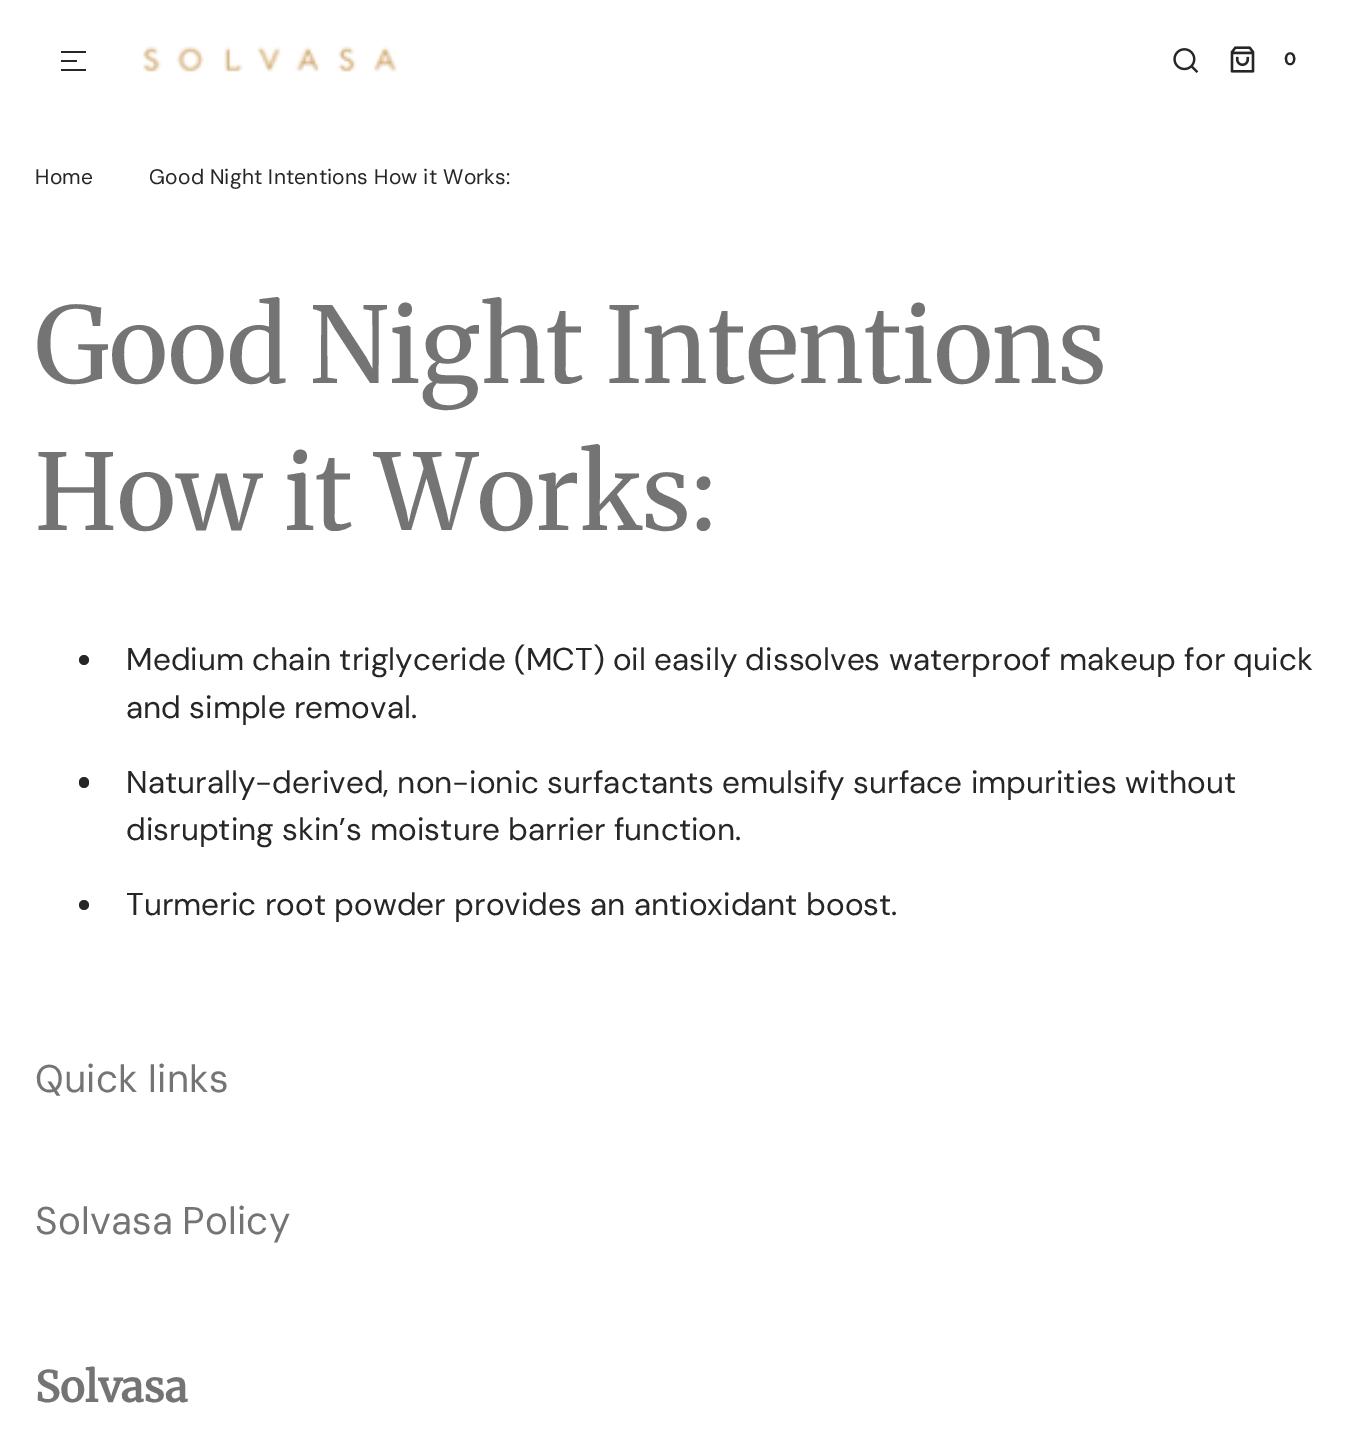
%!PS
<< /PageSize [1348 1441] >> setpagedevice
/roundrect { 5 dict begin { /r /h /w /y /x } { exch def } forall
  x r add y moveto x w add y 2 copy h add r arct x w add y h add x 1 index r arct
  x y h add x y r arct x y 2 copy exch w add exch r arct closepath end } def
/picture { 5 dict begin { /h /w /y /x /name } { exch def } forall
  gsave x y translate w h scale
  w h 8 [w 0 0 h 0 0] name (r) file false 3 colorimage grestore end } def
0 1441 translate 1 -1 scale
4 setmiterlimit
1 setgray
0 0 1348 1441 rectfill
0.149 setgray
61 51 25 2 rectfill
61 60 16 2 rectfill
61 69 25 2 rectfill
(img1.rgb) 143 46 254 27 picture
(img2.rgb) 1173 48 26 25 picture
(img3.rgb) 1230 46 25 27 picture
/DMSans-Bold [18 0 0 -18 0 0] selectfont
1284 65 moveto 0.2 0 (0) ashow
/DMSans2-Regular [21 0 0 -21 0 0] selectfont
35 184 moveto 0.2 0 (Home) ashow
149 184 moveto 0.2 0 (Good Night Intentions How it Works:) ashow
/Merriweather-Regular [105 0 0 -105 0 0] selectfont
0.455 setgray
35 383 moveto 0.2 0 (Good Night Intentions) ashow
35 530 moveto 0.2 0 (How it Works:) ashow
0.149 setgray
newpath 84 660 5 0 360 arc closepath fill
/DMSans-Regular [31.5 0 0 -31.5 0 0] selectfont
126 670 moveto (Medium chain triglyceride \(MCT\) oil easily dissolves waterproof makeup for quick) show
126 718 moveto (and simple removal.) show
79 777 10 11 5 roundrect fill
126 793 moveto (Naturally-derived, non-ionic surfactants emulsify surface impurities without) show
126 840 moveto (disrupting skin’s moisture barrier function.) show
newpath 84 905 5 0 360 arc closepath fill
126 915 moveto (Turmeric root powder provides an antioxidant boost.) show
/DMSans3-Regular [38.5 0 0 -38.5 0 0] selectfont
0.455 setgray
35 1092 moveto 0.2 0 (Quick links) ashow
35 1234 moveto -2 0 32 0.2 0 (Solvasa Policy) awidthshow
/Merriweather-Bold [42 0 0 -42 0 0] selectfont
35 1402 moveto 0.2 0 (Solvasa) ashow
showpage
